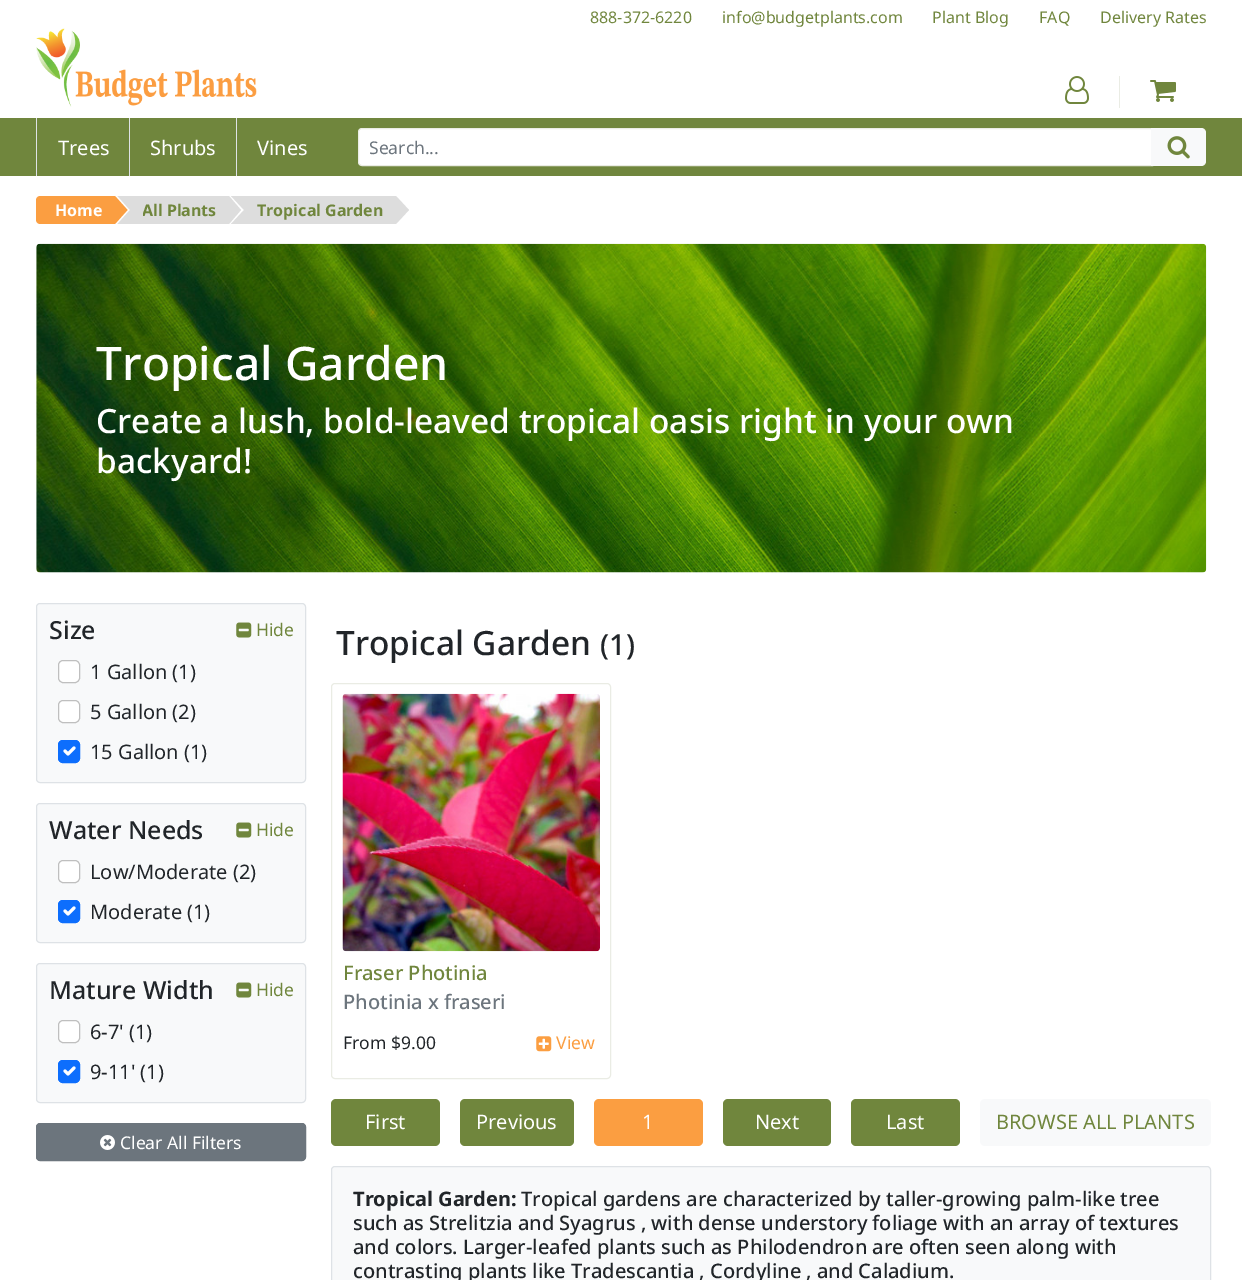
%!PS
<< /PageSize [1242 1280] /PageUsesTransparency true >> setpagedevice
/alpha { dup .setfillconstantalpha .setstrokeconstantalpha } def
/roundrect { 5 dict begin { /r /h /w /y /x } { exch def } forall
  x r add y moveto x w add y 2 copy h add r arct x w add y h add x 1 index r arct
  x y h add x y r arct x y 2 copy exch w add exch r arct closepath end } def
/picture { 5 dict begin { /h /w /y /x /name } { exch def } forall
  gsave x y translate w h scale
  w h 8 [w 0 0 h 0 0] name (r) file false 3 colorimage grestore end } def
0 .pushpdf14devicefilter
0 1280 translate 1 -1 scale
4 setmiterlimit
1 setgray
0 0 1242 1280 rectfill
/NotoSans-Regular [16 0 0 -16 0 0] selectfont
0.439 0.525 0.239 setrgbcolor
590 23 moveto (888-372-6220) show
722 23 moveto (info@budgetplants.com) show
932 23 moveto (Plant Blog) show
1039 23 moveto (FAQ) show
1100 23 moveto (Delivery Rates) show
(img1.rgb) 36 28 221 79 picture
0.918 0.925 0.894 setrgbcolor
1119 76 1 32 rectfill
(img2.rgb) 1065 76 24 28 picture
(img3.rgb) 1150 80 26 22 picture
0.439 0.525 0.239 setrgbcolor
0 118 1242 58 rectfill
0.871 0.886 0.902 setrgbcolor
36 118 1 58 rectfill
/NotoSans-Regular [20 0 0 -20 0 0] selectfont
1 setgray
58 155 moveto (Trees) show
0.871 0.886 0.902 setrgbcolor
129 118 1 58 rectfill
1 setgray
150 155 moveto (Shrubs) show
0.871 0.886 0.902 setrgbcolor
236 118 1 58 rectfill
1 setgray
257 155 moveto (Vines) show
newpath 361.5 129 moveto 1151 129 lineto 1151 165 lineto 361.5 165 lineto 360 165 359 164 359 162.5 curveto 359 131.5 lineto 359 130 360 129 361.5 129 curveto closepath fill
0.918 0.925 0.894 setrgbcolor
newpath 362 128.5 moveto 1152.5 128.5 lineto 1152.5 165.5 lineto 362 165.5 lineto 360 165.5 358.5 164 358.5 162 curveto 358.5 132 lineto 358.5 130 360 128.5 362 128.5 curveto closepath stroke
/NotoSans-Regular [17.5 0 0 -17.5 0 0] selectfont
0.424 0.459 0.49 setrgbcolor
369 154 moveto (Search...) show
0.973 0.976 0.98 setrgbcolor
newpath 1151 128 moveto 1201 128 lineto 1204 128 1206 130 1206 133 curveto 1206 161 lineto 1206 164 1204 166 1201 166 curveto 1151 166 lineto closepath fill
(img4.rgb) 1167 136 23 23 picture
0.984 0.62 0.255 setrgbcolor
newpath 40 196 moveto 115 196 lineto 115 224 lineto 40 224 lineto 38 224 36 222 36 220 curveto 36 200 lineto 36 198 38 196 40 196 curveto closepath fill
/NotoSans-Bold [16 0 0 -16 0 0] selectfont
1 setgray
55 216 moveto (Home) show
0.984 0.62 0.255 setrgbcolor
newpath 115 224 moveto 115 196 lineto 127.5 210 lineto closepath fill
0.867 setgray
143 196 86 28 rectfill
0.439 0.525 0.239 setrgbcolor
142 216 moveto (All Plants) show
0.867 setgray
newpath 117.5 196 moveto 142.5 196 lineto 130 210 lineto closepath fill
130 196 13 28 rectfill
newpath 142.5 224 moveto 117.5 224 lineto 130 210 lineto closepath fill
newpath 229 224 moveto 229 196 lineto 241 210 lineto closepath fill
256 196 140 28 rectfill
newpath 231 196 moveto 256 196 lineto 244 210 lineto closepath fill
244 196 12 28 rectfill
newpath 256 224 moveto 231 224 lineto 244 210 lineto closepath fill
0.439 0.525 0.239 setrgbcolor
257 216 moveto (Tropical Garden) show
0.867 setgray
newpath 396 224 moveto 396 196 lineto 409 210 lineto closepath fill
(img5.rgb) 36 243 1171 330 picture
/NotoSans-Medium [46.25 0 0 -46.25 0 0] selectfont
1 setgray
96 380 moveto (Tropical Garden) show
/NotoSans-Medium [33.45 0 0 -33.45 0 0] selectfont
96 433 moveto (Create a lush, bold-leaved tropical oasis right in your own) show
96 473 moveto (backyard!) show
0.973 0.976 0.98 setrgbcolor
36.5 603.5 269 179 3.5 roundrect gsave fill grestore
0.871 0.886 0.902 setrgbcolor
stroke
/NotoSans-Medium [25 0 0 -25 0 0] selectfont
0.129 0.145 0.161 setrgbcolor
49 639 moveto (Size) show
(img6.rgb) 236 622 16 16 picture
/NotoSans-Regular [17.5 0 0 -17.5 0 0] selectfont
0.439 0.525 0.239 setrgbcolor
256 636 moveto (Hide) show
1 setgray
58 660 22 23 5 roundrect fill
0.25 alpha
0 setgray
58.5 660.5 21 22 4.5 roundrect stroke
/NotoSans-Regular [20 0 0 -20 0 0] selectfont
1 alpha
0.129 0.145 0.161 setrgbcolor
90 679 moveto (1 Gallon \(1\)) show
1 setgray
58 700 22 23 5 roundrect fill
0.25 alpha
0 setgray
58.5 700.5 21 22 4.5 roundrect stroke
1 alpha
0.129 0.145 0.161 setrgbcolor
90 719 moveto (5 Gallon \(2\)) show
0.051 0.431 0.992 setrgbcolor
58 740 22 23 5 roundrect fill
1 setgray
3 setlinewidth
1 setlinecap
1 setlinejoin
newpath 65 751 moveto 68 754 lineto 74 748 lineto stroke
0.051 0.431 0.992 setrgbcolor
1 setlinewidth
0 setlinecap
0 setlinejoin
58.5 740.5 21 22 4.5 roundrect stroke
0.129 0.145 0.161 setrgbcolor
90 759 moveto (15 Gallon \(1\)) show
0.973 0.976 0.98 setrgbcolor
36.5 803.5 269 139 3.5 roundrect gsave fill grestore
0.871 0.886 0.902 setrgbcolor
stroke
/NotoSans-Medium [25 0 0 -25 0 0] selectfont
0.129 0.145 0.161 setrgbcolor
49 839 moveto (Water Needs) show
(img6.rgb) 236 822 16 16 picture
/NotoSans-Regular [17.5 0 0 -17.5 0 0] selectfont
0.439 0.525 0.239 setrgbcolor
256 836 moveto (Hide) show
1 setgray
58 860 22 23 5 roundrect fill
0.25 alpha
0 setgray
58.5 860.5 21 22 4.5 roundrect stroke
/NotoSans-Regular [20 0 0 -20 0 0] selectfont
1 alpha
0.129 0.145 0.161 setrgbcolor
90 879 moveto (Low/Moderate \(2\)) show
0.051 0.431 0.992 setrgbcolor
58 900 22 23 5 roundrect fill
1 setgray
3 setlinewidth
1 setlinecap
1 setlinejoin
newpath 65 911 moveto 68 914 lineto 74 908 lineto stroke
0.051 0.431 0.992 setrgbcolor
1 setlinewidth
0 setlinecap
0 setlinejoin
58.5 900.5 21 22 4.5 roundrect stroke
0.129 0.145 0.161 setrgbcolor
90 919 moveto (Moderate \(1\)) show
0.973 0.976 0.98 setrgbcolor
36.5 963.5 269 139 3.5 roundrect gsave fill grestore
0.871 0.886 0.902 setrgbcolor
stroke
/NotoSans-Medium [25 0 0 -25 0 0] selectfont
0.129 0.145 0.161 setrgbcolor
49 999 moveto (Mature Width) show
(img6.rgb) 236 982 16 16 picture
/NotoSans-Regular [17.5 0 0 -17.5 0 0] selectfont
0.439 0.525 0.239 setrgbcolor
256 996 moveto (Hide) show
1 setgray
58 1020 22 23 5 roundrect fill
0.25 alpha
0 setgray
58.5 1020.5 21 22 4.5 roundrect stroke
/NotoSans-Regular [20 0 0 -20 0 0] selectfont
1 alpha
0.129 0.145 0.161 setrgbcolor
90 1039 moveto (6-7' \(1\)) show
0.051 0.431 0.992 setrgbcolor
58 1060 22 23 5 roundrect fill
1 setgray
3 setlinewidth
1 setlinecap
1 setlinejoin
newpath 65 1071 moveto 68 1074 lineto 74 1068 lineto stroke
0.051 0.431 0.992 setrgbcolor
1 setlinewidth
0 setlinecap
0 setlinejoin
58.5 1060.5 21 22 4.5 roundrect stroke
0.129 0.145 0.161 setrgbcolor
90 1079 moveto (9-11' \(1\)) show
0.424 0.459 0.49 setrgbcolor
36.5 1123.5 269 37 3.5 roundrect gsave fill grestore
stroke
(img7.rgb) 100 1135 15 15 picture
/NotoSans-Regular [17.5 0 0 -17.5 0 0] selectfont
1 setgray
120 1149 moveto (Clear All Filters) show
/NotoSans-Medium [33.45 0 0 -33.45 0 0] selectfont
0.129 0.145 0.161 setrgbcolor
336 655 moveto (Tropical Garden) show
/NotoSans-Medium [29 0 0 -29 0 0] selectfont
600 655 moveto (\(1\)) show
0.918 0.925 0.894 setrgbcolor
331.5 683.5 279 395 3.5 roundrect stroke
(img8.rgb) 342 693 258 259 picture
/NotoSans-Medium [20 0 0 -20 0 0] selectfont
0.439 0.525 0.239 setrgbcolor
343 980 moveto (Fraser Photinia) show
0.424 0.459 0.49 setrgbcolor
343 1009 moveto (Photinia x fraseri) show
/NotoSans-Regular [17.5 0 0 -17.5 0 0] selectfont
0.129 0.145 0.161 setrgbcolor
343 1049 moveto (From $9.00) show
(img9.rgb) 536 1036 16 16 picture
0.984 0.62 0.255 setrgbcolor
556 1049 moveto (View) show
0.439 0.525 0.239 setrgbcolor
331 1099 109 47 5 roundrect fill
/NotoSans-Regular [20 0 0 -20 0 0] selectfont
1 setgray
365 1129 moveto (First) show
0.439 0.525 0.239 setrgbcolor
460 1099 114 47 5 roundrect fill
1 setgray
476 1129 moveto (Previous) show
0.984 0.62 0.255 setrgbcolor
594 1099 109 47 5 roundrect fill
1 setgray
642 1129 moveto (1) show
0.439 0.525 0.239 setrgbcolor
723 1099 108 47 5 roundrect fill
1 setgray
755 1129 moveto (Next) show
0.439 0.525 0.239 setrgbcolor
851 1099 109 47 5 roundrect fill
1 setgray
886 1129 moveto (Last) show
0.973 0.976 0.98 setrgbcolor
980 1099 231 47 5 roundrect fill
0.439 0.525 0.239 setrgbcolor
996 1129 moveto (BROWSE ALL PLANTS) show
0.973 0.976 0.98 setrgbcolor
331.5 1166.5 879 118 3.5 roundrect gsave fill grestore
0.871 0.886 0.902 setrgbcolor
stroke
/NotoSans-Bold [20 0 0 -20 0 0] selectfont
0.129 0.145 0.161 setrgbcolor
353 1206 moveto (Tropical Garden:) show
/NotoSans-Medium [20 0 0 -20 0 0] selectfont
521 1206 moveto (Tropical gardens are characterized by taller-growing palm-like tree) show
353 1230 moveto (such as Strelitzia and Syagrus , with dense understory foliage with an array of textures) show
353 1254 moveto (and colors. Larger-leafed plants such as Philodendron are often seen along with) show
353 1278 moveto (contrasting plants like Tradescantia , Cordyline , and Caladium.) show
.poppdf14devicefilter showpage
